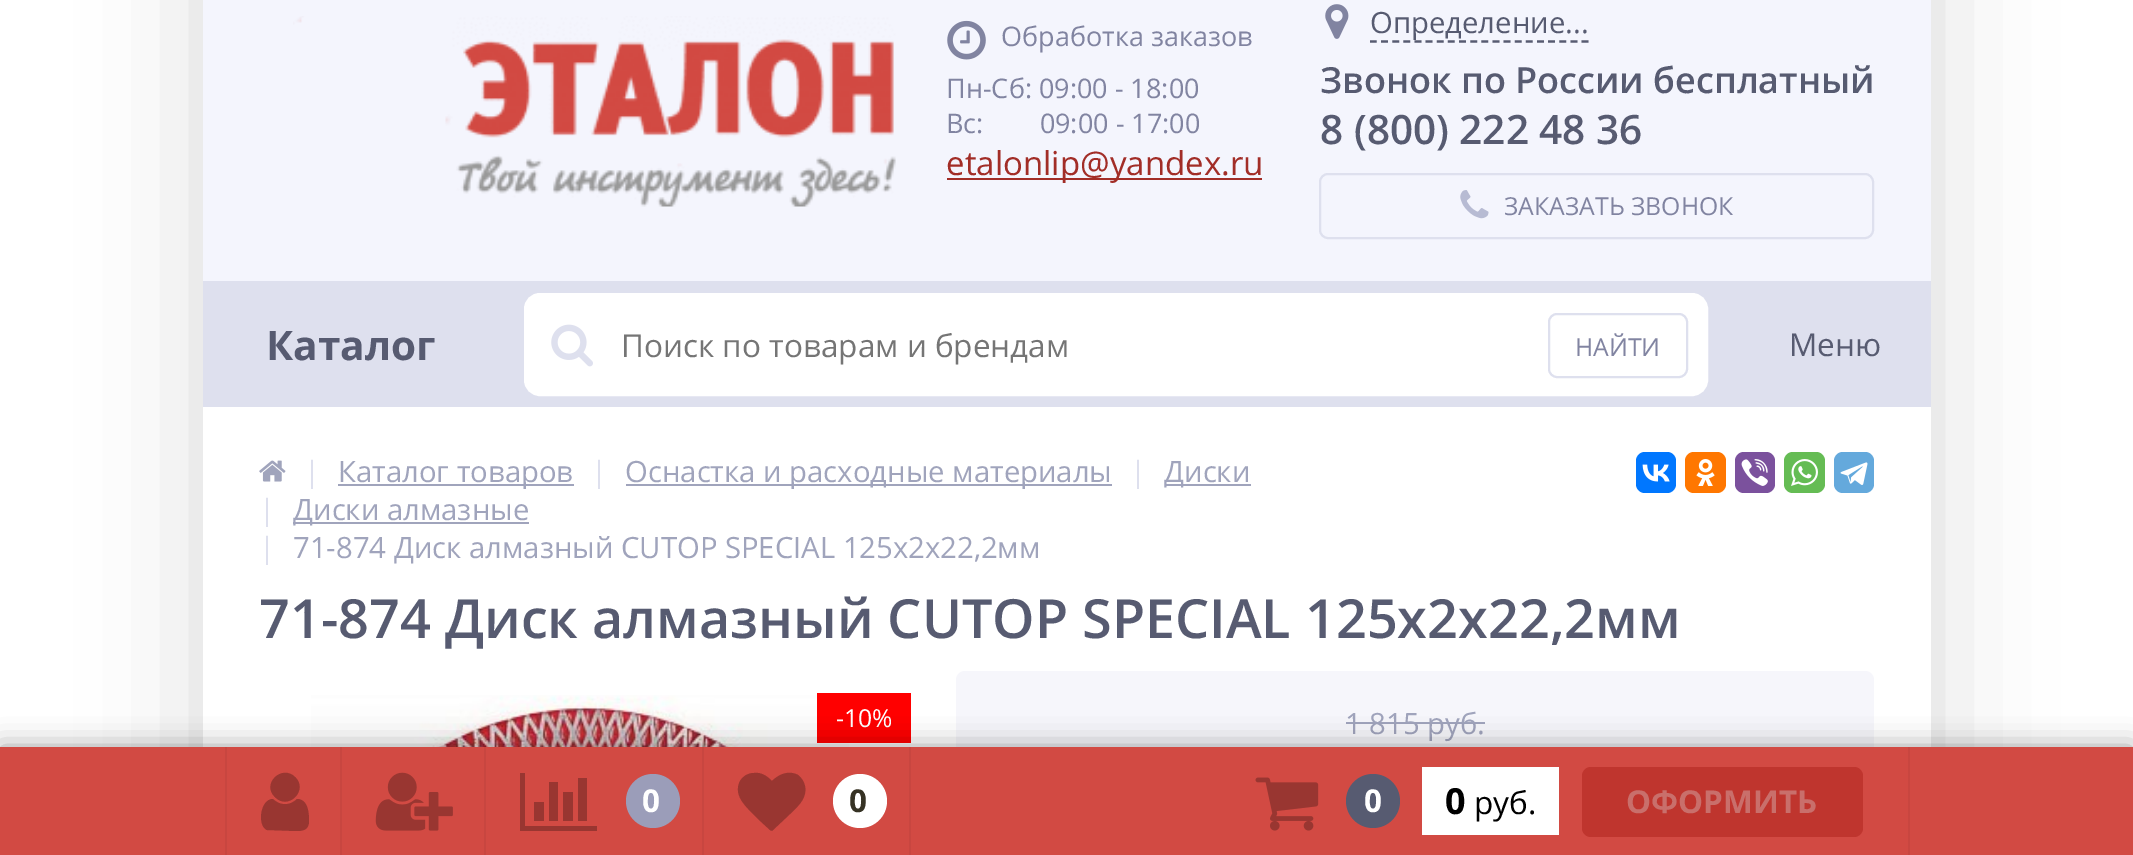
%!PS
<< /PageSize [2133 855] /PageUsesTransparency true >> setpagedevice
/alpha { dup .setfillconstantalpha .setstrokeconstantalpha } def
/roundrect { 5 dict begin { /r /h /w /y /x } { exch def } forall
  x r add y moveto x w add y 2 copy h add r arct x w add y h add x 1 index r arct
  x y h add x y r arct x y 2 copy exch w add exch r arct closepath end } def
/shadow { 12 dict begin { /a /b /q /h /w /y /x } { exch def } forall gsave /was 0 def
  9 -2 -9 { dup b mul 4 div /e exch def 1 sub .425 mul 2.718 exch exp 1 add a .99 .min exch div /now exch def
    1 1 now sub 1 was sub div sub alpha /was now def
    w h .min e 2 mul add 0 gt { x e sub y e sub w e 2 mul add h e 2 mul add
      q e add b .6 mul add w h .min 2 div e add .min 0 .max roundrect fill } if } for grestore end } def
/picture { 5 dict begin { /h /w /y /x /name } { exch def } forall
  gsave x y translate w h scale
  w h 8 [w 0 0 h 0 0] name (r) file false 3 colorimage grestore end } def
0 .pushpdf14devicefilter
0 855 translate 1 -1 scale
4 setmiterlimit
1 setgray
0 0 2133 855 rectfill
0 setgray
203 -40 1728 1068 0 57.5 0.15 shadow
0.957 0.961 0.992 setrgbcolor
203 0 1728 281 rectfill
(img1.rgb) 293 16 603 191 picture
(img2.rgb) 947 20 39 40 picture
/OpenSans-Regular [27 0 0 -27 0 0] selectfont
0.506 0.518 0.631 setrgbcolor
1001 46 moveto (Обработка заказов) show
946 98 moveto (Пн-Сб: 09:00 - 18:00) show
946 133 moveto (Вс:        09:00 - 17:00) show
0.635 0.176 0.153 setrgbcolor
947 178 315 2 rectfill
/OpenSans-Regular [33 0 0 -33 0 0] selectfont
946 175 moveto (etalonlip@yandex.ru) show
(img3.rgb) 1325 4 24 35 picture
0.341 0.357 0.443 setrgbcolor
2.2 setlinewidth
[6.75 4.39] 0 setdash
newpath 1370 41.5 moveto 1588.5 41.5 lineto stroke
/OpenSans-Regular [29.25 0 0 -29.25 0 0] selectfont
1370 33 moveto (Определение...) show
/OpenSans-SemiBold [36 0 0 -36 0 0] selectfont
1320 93 moveto (Звонок по России бесплатный) show
/OpenSans-SemiBold [40.5 0 0 -40.5 0 0] selectfont
1320 144 moveto (8 \(800\) 222 48 36) show
0.871 0.878 0.933 setrgbcolor
2 setlinewidth
[] 0 setdash
1320 174 553 64 8 roundrect stroke
(img4.rgb) 1460 190 29 29 picture
/OpenSans-Regular [24.75 0 0 -24.75 0 0] selectfont
0.506 0.518 0.631 setrgbcolor
1504 215 moveto (ЗАКАЗАТЬ ЗВОНОК) show
0.871 0.878 0.933 setrgbcolor
203 281 1728 126 rectfill
1 setgray
525 294 1182 101 15 roundrect gsave fill grestore
stroke
(img5.rgb) 551 324 42 43 picture
/OpenSans-Regular [31.5 0 0 -31.5 0 0] selectfont
0.459 setgray
621 357 moveto (Поиск по товарам и брендам) show
0.871 0.878 0.933 setrgbcolor
1549 314 138 63 8 roundrect stroke
/OpenSans-Regular [24.75 0 0 -24.75 0 0] selectfont
0.506 0.518 0.631 setrgbcolor
1575 356 moveto (НАЙТИ) show
/OpenSans-Bold [40.5 0 0 -40.5 0 0] selectfont
0.341 0.357 0.443 setrgbcolor
266 360 moveto (Каталог) show
/OpenSans-Regular [31.5 0 0 -31.5 0 0] selectfont
1789 356 moveto (Меню) show
1 setgray
203 407 1728 340 rectfill
(img6.rgb) 259 460 27 22 picture
/OpenSans-Regular [29.25 0 0 -29.25 0 0] selectfont
0.871 0.878 0.933 setrgbcolor
304 482 moveto (|) show
0.627 0.643 0.737 setrgbcolor
338 484 236 2 rectfill
338 482 moveto (Каталог товаров) show
0.871 0.878 0.933 setrgbcolor
591 482 moveto (|) show
0.627 0.643 0.737 setrgbcolor
626 484 486 2 rectfill
625 482 moveto (Оснастка и расходные материалы) show
0.871 0.878 0.933 setrgbcolor
1130 482 moveto (|) show
0.627 0.643 0.737 setrgbcolor
1166 484 85 2 rectfill
1164 482 moveto (Диски) show
0.871 0.878 0.933 setrgbcolor
259 520 moveto (|) show
0.627 0.643 0.737 setrgbcolor
293 522 236 2 rectfill
293 520 moveto (Диски алмазные) show
0.871 0.878 0.933 setrgbcolor
259 558 moveto (|) show
0.627 0.643 0.737 setrgbcolor
293 558 moveto (71-874 Диск алмазный CUTOP SPECIAL 125х2х22,2мм) show
0 0.467 1 setrgbcolor
1636 452 40 41 9 roundrect fill
(img7.rgb) 1642 464 28 18 picture
1 0.467 0 setrgbcolor
1685 452 41 41 9 roundrect fill
(img8.rgb) 1696 459 19 27 picture
0.482 0.318 0.616 setrgbcolor
1735 452 40 41 9 roundrect fill
(img9.rgb) 1741 459 27 27 picture
0.396 0.737 0.329 setrgbcolor
1784 452 41 41 9 roundrect fill
(img10.rgb) 1791 459 27 27 picture
0.392 0.663 0.863 setrgbcolor
1834 452 40 41 9 roundrect fill
(img11.rgb) 1840 462 28 23 picture
/OpenSans-SemiBold [54 0 0 -54 0 0] selectfont
0.341 0.357 0.443 setrgbcolor
259 638 moveto (71-874 Диск алмазный CUTOP SPECIAL 125х2х22,2мм) show
(img12.rgb) 311 695 538 52 picture
1 0 0 setrgbcolor
817 693 94 50 rectfill
/OpenSans-Regular [24.75 0 0 -24.75 0 0] selectfont
1 setgray
836 727 moveto (-10%) show
0.965 0.965 0.984 setrgbcolor
956 671 918 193 9 roundrect fill
/OpenSans-Regular [29.25 0 0 -29.25 0 0] selectfont
0.627 0.643 0.737 setrgbcolor
1345 734 moveto (1 815 руб.) show
1346 722 139 2 rectfill
0 setgray
0 747 2133 108 0 13.5 0.36 shadow
0.824 0.29 0.263 setrgbcolor
0 747 2133 108 rectfill
0.784 0.275 0.251 setrgbcolor
1908 747 2 108 rectfill
225 747 2 108 rectfill
340 747 2 108 rectfill
0.6 0.212 0.192 setrgbcolor
newpath 309 821 moveto 309 830 303 831 296 831 curveto 267 830 lineto 257 826 260 799 273 799 curveto 280 806 290 806 297 799 curveto 308 799 309 813 309 821 curveto closepath 295 777 moveto 309 790 288 811 275 797 curveto 261 784 282 764 295 777 curveto closepath fill
0.784 0.275 0.251 setrgbcolor
484 747 2 108 rectfill
(img13.rgb) 375 772 78 59 picture
702 747 2 108 rectfill
0.6 0.212 0.192 setrgbcolor
newpath 544 802 moveto 544 821 lineto 534 821 lineto 534 802 lineto closepath 558 782 moveto 558 821 lineto 549 821 lineto 549 782 lineto closepath 597 826 moveto 597 831 lineto 520 831 lineto 520 773 lineto 525 773 lineto 525 826 lineto closepath 573 792 moveto 573 821 lineto 563 821 lineto 563 792 lineto closepath 587 778 moveto 587 821 lineto 578 821 lineto 578 778 lineto closepath fill
0.608 0.616 0.725 setrgbcolor
newpath 653 801 27 0 360 arc closepath fill
/OpenSans-Bold [31.5 0 0 -31.5 0 0] selectfont
1 setgray
642 812 moveto (0) show
0.784 0.275 0.251 setrgbcolor
909 747 2 108 rectfill
0.6 0.212 0.192 setrgbcolor
newpath 773 830 moveto 773 831 771 831 770 830 curveto 758 819 lineto 749 809 732 797 740 781 curveto 743 776 748 773 754 773 curveto 761 772 767 776 772 781 curveto 779 774 789 770 798 775 curveto 802 778 804 782 805 786 curveto 806 791 805 795 803 799 curveto 800 805 794 810 789 815 curveto closepath fill
1 setgray
newpath 860 801 27 0 360 arc closepath fill
0.212 0.196 0.141 setrgbcolor
849 812 moveto (0) show
(img14.rgb) 1255 777 64 54 picture
0.341 0.357 0.443 setrgbcolor
newpath 1373 801 27 0 360 arc closepath fill
1 setgray
1364 812 moveto (0) show
1422 767 137 68 rectfill
/OpenSans-Bold [36 0 0 -36 0 0] selectfont
0 setgray
1445 814 moveto (0) show
/OpenSans-Regular [31.5 0 0 -31.5 0 0] selectfont
1474 814 moveto (руб.) show
0.749 0.208 0.18 setrgbcolor
1582 767 281 70 9 roundrect fill
/OpenSans-Bold [31.5 0 0 -31.5 0 0] selectfont
0.788 0.435 0.42 setrgbcolor
1626 813 moveto (ОФОРМИТЬ) show
.poppdf14devicefilter showpage
